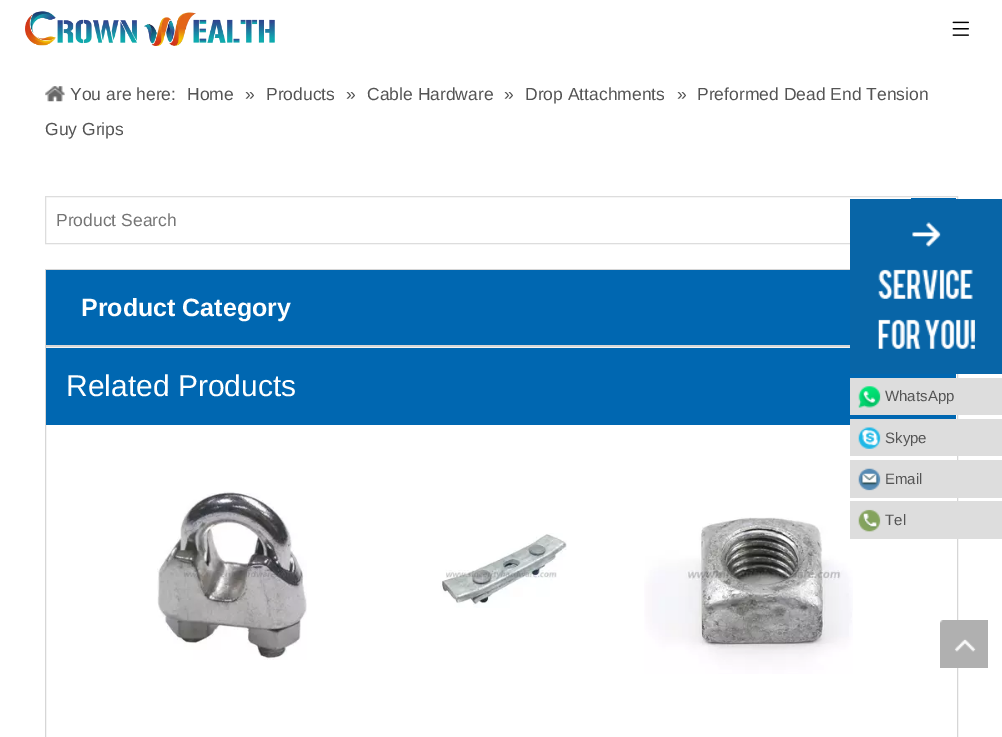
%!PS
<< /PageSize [1002 737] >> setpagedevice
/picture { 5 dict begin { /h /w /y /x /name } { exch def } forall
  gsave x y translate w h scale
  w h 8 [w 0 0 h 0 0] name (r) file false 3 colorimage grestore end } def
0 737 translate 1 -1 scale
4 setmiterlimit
1 setgray
0 0 1002 737 rectfill
(img1.rgb) 25 11 250 35 picture
(img2.rgb) 952 21 17 15 picture
(img3.rgb) 45 86 20 16 picture
/LiberationSans-Regular [17.5 0 0 -17.5 0 0] selectfont
0.329 setgray
70 100 moveto (You are here:) show
187 100 moveto (Home) show
245 100 moveto (») show
266 100 moveto (Products) show
346 100 moveto (») show
367 100 moveto (Cable Hardware) show
504 100 moveto (») show
525 100 moveto (Drop Attachments) show
677 100 moveto (») show
697 100 moveto (Preformed Dead End Tension) show
45 135 moveto (Guy Grips) show
0.867 setgray
45.5 196.5 912 47 rectstroke
0 0.404 0.694 setrgbcolor
911 198 45 1 rectfill
0.459 setgray
56 226 moveto (Product Search) show
0.839 setgray
45.5 269.5 912 76 rectstroke
0 0.404 0.694 setrgbcolor
46 270 804 75 rectfill
/LiberationSans-Bold [25 0 0 -25 0 0] selectfont
1 setgray
81 316 moveto (Product Category) show
0.839 setgray
45.5 346.5 912 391 rectstroke
0 0.404 0.694 setrgbcolor
46 348 910 77 rectfill
/LiberationSans-Regular [30 0 0 -30 0 0] selectfont
1 setgray
66 396 moveto (Related Products) show
(img4.rgb) 157 491 150 169 picture
(img5.rgb) 440 533 127 75 picture
(img6.rgb) 644 517 209 157 picture
0.031 0.396 0.655 setrgbcolor
850 199 152 175 rectfill
(img7.rgb) 878 222 97 127 picture
0.867 setgray
850 378 152 37 rectfill
(img8.rgb) 858 386 23 22 picture
/LiberationSans-Regular [15 0 0 -15 0 0] selectfont
0.329 setgray
885 401 moveto (WhatsApp) show
0.867 setgray
850 419 152 37 rectfill
(img9.rgb) 858 427 23 22 picture
0.329 setgray
885 443 moveto (Skype) show
0.867 setgray
850 460 152 38 rectfill
(img10.rgb) 858 468 23 23 picture
0.329 setgray
885 484 moveto (Email) show
0.867 setgray
850 501 152 38 rectfill
(img11.rgb) 858 509 23 23 picture
0.329 setgray
885 525 moveto (Tel) show
(img12.rgb) 940 620 48 48 picture
showpage
